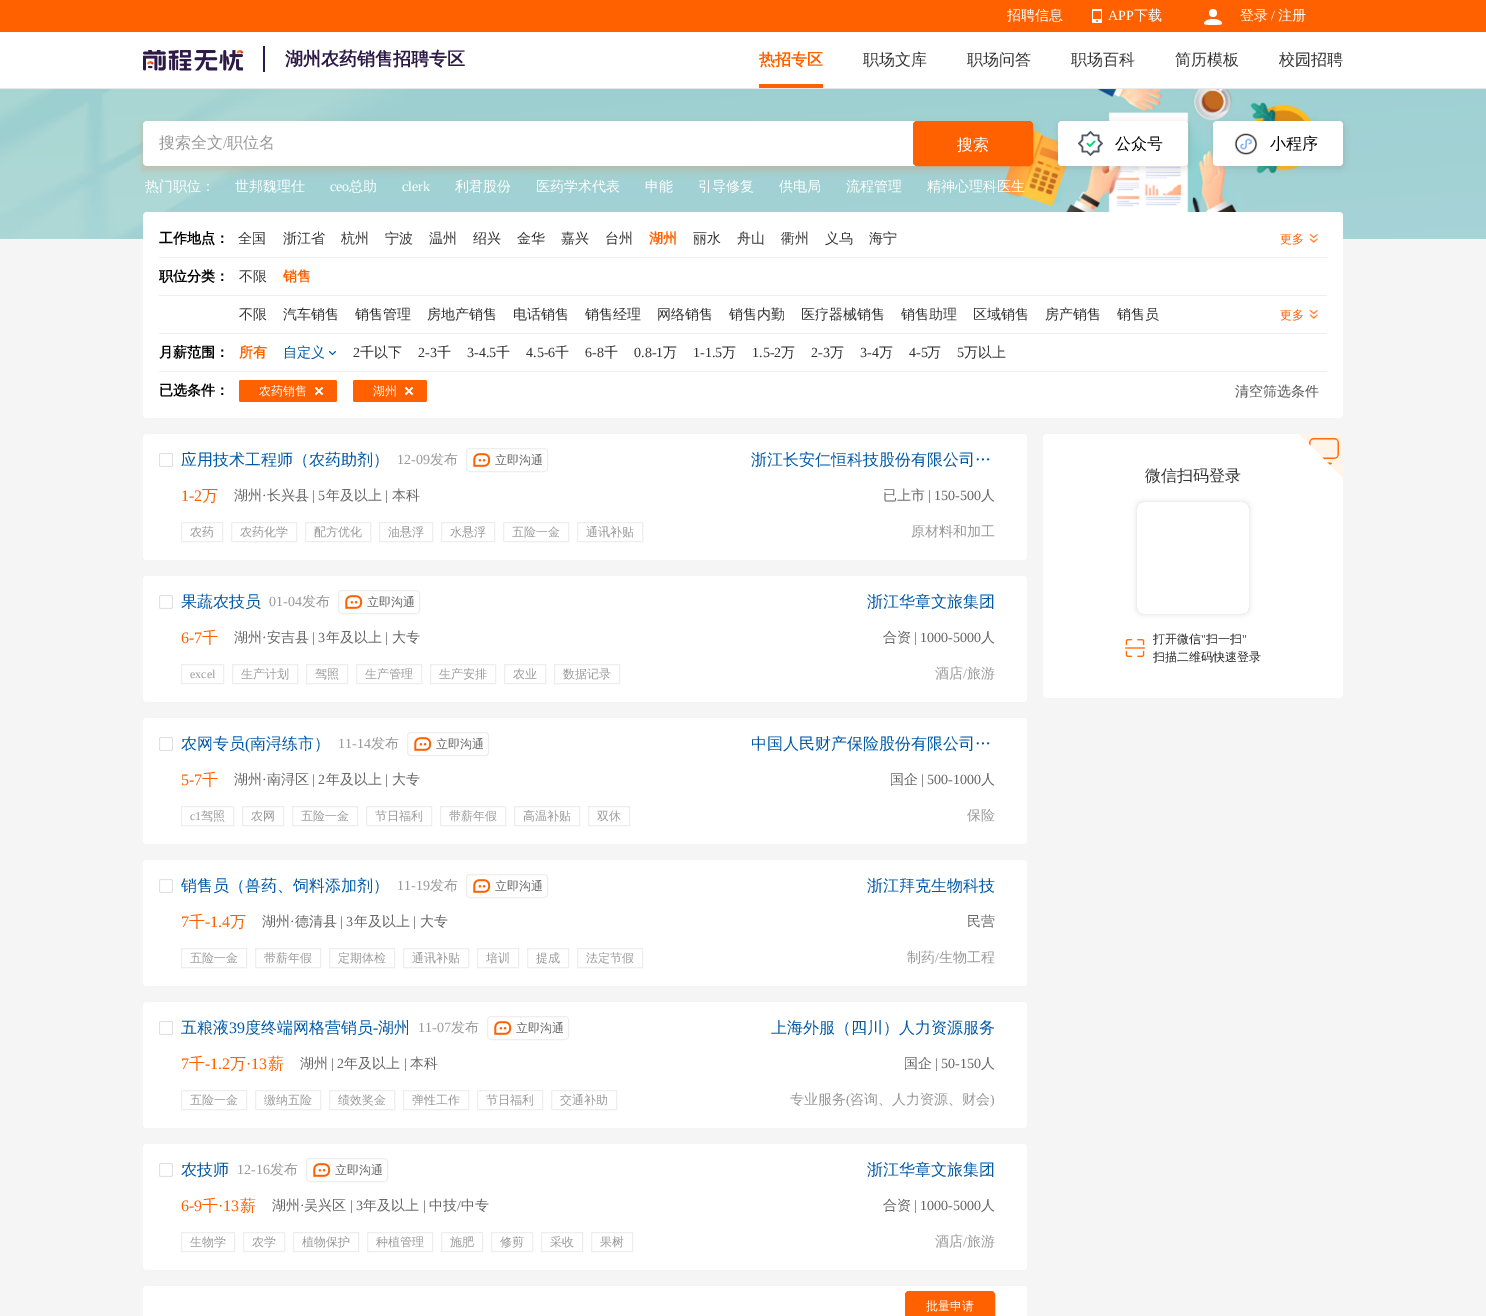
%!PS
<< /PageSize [1486 1316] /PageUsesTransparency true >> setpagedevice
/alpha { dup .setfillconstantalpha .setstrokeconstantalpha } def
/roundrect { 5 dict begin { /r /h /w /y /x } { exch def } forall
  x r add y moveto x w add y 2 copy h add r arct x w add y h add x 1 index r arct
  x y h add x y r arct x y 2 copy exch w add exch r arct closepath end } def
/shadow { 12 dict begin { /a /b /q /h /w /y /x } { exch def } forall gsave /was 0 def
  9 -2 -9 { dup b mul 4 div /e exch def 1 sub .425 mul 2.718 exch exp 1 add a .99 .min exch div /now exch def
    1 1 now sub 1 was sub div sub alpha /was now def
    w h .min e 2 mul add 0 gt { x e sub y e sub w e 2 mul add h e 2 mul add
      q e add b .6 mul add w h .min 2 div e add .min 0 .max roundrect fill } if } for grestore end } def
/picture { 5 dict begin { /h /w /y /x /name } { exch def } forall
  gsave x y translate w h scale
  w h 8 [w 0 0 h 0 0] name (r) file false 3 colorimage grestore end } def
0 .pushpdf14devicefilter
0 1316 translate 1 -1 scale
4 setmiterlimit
0.961 setgray
0 0 1486 1316 rectfill
1 0.376 0 setrgbcolor
0 0 1486 32 rectfill
/WenQuanYiZenHei-Medium [14 0 0 -14 0 0] selectfont
1 setgray
1007 20 moveto (招聘信息) show
(img1.rgb) 1092 9 10 14 picture
/LiberationSerif-Regular [14 0 0 -14 0 0] selectfont
1108 20 moveto (APP) show
/WenQuanYiZenHei-Medium [14 0 0 -14 0 0] selectfont
1134 20 moveto (下载) show
(img2.rgb) 1204 9 18 16 picture
1240 20 moveto (登录) show
/LiberationSerif-Regular [14 0 0 -14 0 0] selectfont
1271 20 moveto (/) show
/WenQuanYiZenHei-Medium [14 0 0 -14 0 0] selectfont
1278 20 moveto (注册) show
0 32 1486 56 rectfill
0.91 setgray
0 88 1486 1 rectfill
(img3.rgb) 143 50 100 21 picture
0.173 0.102 0.275 setrgbcolor
263 46 2 26 rectfill
/WenQuanYiZenHei-Bold [18 0 0 -18 0 0] selectfont
285 65 moveto (湖州农药销售招聘专区) show
1 0.376 0 setrgbcolor
759 84 64 4 rectfill
/WenQuanYiZenHei-Bold [16 0 0 -16 0 0] selectfont
759 65 moveto (热招专区) show
/WenQuanYiZenHei-Medium [16 0 0 -16 0 0] selectfont
0.2 setgray
863 65 moveto (职场文库) show
967 65 moveto (职场问答) show
1071 65 moveto (职场百科) show
1175 65 moveto (简历模板) show
1279 65 moveto (校园招聘) show
(img4.rgb) 0 89 1486 150 picture
1 0.376 0 setrgbcolor
143 125 890 45 0 4 0.2 shadow
1 setgray
newpath 147 121 moveto 913 121 lineto 913 166 lineto 147 166 lineto 145 166 143 164 143 162 curveto 143 125 lineto 143 123 145 121 147 121 curveto closepath fill
143 123 1 40 rectfill
0.6 setgray
159 148 moveto (搜索全文) show
/LiberationSerif-Regular [16 0 0 -16 0 0] selectfont
223 148 moveto (/) show
/WenQuanYiZenHei-Medium [16 0 0 -16 0 0] selectfont
227 148 moveto (职位名) show
1 setgray
newpath 913 121 moveto 1029 121 lineto 1031 121 1033 123 1033 125 curveto 1033 162 lineto 1033 164 1031 166 1029 166 curveto 913 166 lineto closepath fill
1 0.376 0 setrgbcolor
913.5 121.5 119 44 3.5 roundrect gsave fill grestore
stroke
1 setgray
957 150 moveto (搜索) show
0.463 0.459 0.459 setrgbcolor
1059 123 130 45 4 3.5 0.27 shadow
1 setgray
1058 121 130 45 4 roundrect fill
(img5.rgb) 1078 131 25 25 picture
0 setgray
1115 149 moveto (公众号) show
0.463 0.459 0.459 setrgbcolor
1214 123 130 45 4 3.5 0.27 shadow
1 setgray
1213 121 130 45 4 roundrect fill
(img6.rgb) 1234 133 24 22 picture
0 setgray
1270 149 moveto (小程序) show
/WenQuanYiZenHei-Medium [14 0 0 -14 0 0] selectfont
1 setgray
145 191 moveto (热门职位：) show
235 191 moveto (世邦魏理仕) show
/LiberationSerif-Regular [14 0 0 -14 0 0] selectfont
330 191 moveto (ceo) show
/WenQuanYiZenHei-Medium [14 0 0 -14 0 0] selectfont
349 191 moveto (总助) show
/LiberationSerif-Regular [14 0 0 -14 0 0] selectfont
402 191 moveto (clerk) show
/WenQuanYiZenHei-Medium [14 0 0 -14 0 0] selectfont
455 191 moveto (利君股份) show
536 191 moveto (医药学术代表) show
645 191 moveto (申能) show
698 191 moveto (引导修复) show
779 191 moveto (供电局) show
846 191 moveto (流程管理) show
927 191 moveto (精神心理科医生) show
143 212 1200 206 4 roundrect fill
/WenQuanYiZenHei-Bold [14 0 0 -14 0 0] selectfont
0 setgray
159 243 moveto (工作地点：) show
/WenQuanYiZenHei-Medium [14 0 0 -14 0 0] selectfont
0.2 setgray
238 243 moveto (全国) show
283 243 moveto (浙江省) show
341 243 moveto (杭州) show
385 243 moveto (宁波) show
429 243 moveto (温州) show
473 243 moveto (绍兴) show
517 243 moveto (金华) show
561 243 moveto (嘉兴) show
605 243 moveto (台州) show
/WenQuanYiZenHei-Bold [14 0 0 -14 0 0] selectfont
1 0.376 0 setrgbcolor
649 243 moveto (湖州) show
/WenQuanYiZenHei-Medium [14 0 0 -14 0 0] selectfont
0.2 setgray
693 243 moveto (丽水) show
737 243 moveto (舟山) show
781 243 moveto (衢州) show
825 243 moveto (义乌) show
869 243 moveto (海宁) show
/WenQuanYiZenHei-Medium [12 0 0 -12 0 0] selectfont
1 0.376 0 setrgbcolor
1280 243 moveto (更多) show
(img7.rgb) 1309 234 9 9 picture
0.937 setgray
159 257 1168 1 rectfill
/WenQuanYiZenHei-Bold [14 0 0 -14 0 0] selectfont
0 setgray
159 281 moveto (职位分类：) show
/WenQuanYiZenHei-Medium [14 0 0 -14 0 0] selectfont
0.2 setgray
239 281 moveto (不限) show
/WenQuanYiZenHei-Bold [14 0 0 -14 0 0] selectfont
1 0.376 0 setrgbcolor
283 281 moveto (销售) show
0.937 setgray
159 295 1168 1 rectfill
/WenQuanYiZenHei-Medium [14 0 0 -14 0 0] selectfont
0.2 setgray
239 319 moveto (不限) show
283 319 moveto (汽车销售) show
355 319 moveto (销售管理) show
427 319 moveto (房地产销售) show
513 319 moveto (电话销售) show
585 319 moveto (销售经理) show
657 319 moveto (网络销售) show
729 319 moveto (销售内勤) show
801 319 moveto (医疗器械销售) show
901 319 moveto (销售助理) show
973 319 moveto (区域销售) show
1045 319 moveto (房产销售) show
1117 319 moveto (销售员) show
/WenQuanYiZenHei-Medium [12 0 0 -12 0 0] selectfont
1 0.376 0 setrgbcolor
1280 319 moveto (更多) show
(img7.rgb) 1309 310 9 9 picture
0.937 setgray
159 333 1168 1 rectfill
/WenQuanYiZenHei-Bold [14 0 0 -14 0 0] selectfont
0 setgray
159 357 moveto (月薪范围：) show
1 0.376 0 setrgbcolor
239 357 moveto (所有) show
/WenQuanYiZenHei-Medium [14 0 0 -14 0 0] selectfont
0 0.345 0.651 setrgbcolor
283 357 moveto (自定义) show
(img8.rgb) 329 351 8 4 picture
/LiberationSerif-Regular [14 0 0 -14 0 0] selectfont
0.2 setgray
353 357 moveto (2) show
/WenQuanYiZenHei-Medium [14 0 0 -14 0 0] selectfont
360 357 moveto (千以下) show
/LiberationSerif-Regular [14 0 0 -14 0 0] selectfont
418 357 moveto (2-3) show
/WenQuanYiZenHei-Medium [14 0 0 -14 0 0] selectfont
437 357 moveto (千) show
/LiberationSerif-Regular [14 0 0 -14 0 0] selectfont
467 357 moveto (3-4.5) show
/WenQuanYiZenHei-Medium [14 0 0 -14 0 0] selectfont
496 357 moveto (千) show
/LiberationSerif-Regular [14 0 0 -14 0 0] selectfont
526 357 moveto (4.5-6) show
/WenQuanYiZenHei-Medium [14 0 0 -14 0 0] selectfont
555 357 moveto (千) show
/LiberationSerif-Regular [14 0 0 -14 0 0] selectfont
585 357 moveto (6-8) show
/WenQuanYiZenHei-Medium [14 0 0 -14 0 0] selectfont
604 357 moveto (千) show
/LiberationSerif-Regular [14 0 0 -14 0 0] selectfont
634 357 moveto (0.8-1) show
/WenQuanYiZenHei-Medium [14 0 0 -14 0 0] selectfont
663 357 moveto (万) show
/LiberationSerif-Regular [14 0 0 -14 0 0] selectfont
693 357 moveto (1-1.5) show
/WenQuanYiZenHei-Medium [14 0 0 -14 0 0] selectfont
722 357 moveto (万) show
/LiberationSerif-Regular [14 0 0 -14 0 0] selectfont
752 357 moveto (1.5-2) show
/WenQuanYiZenHei-Medium [14 0 0 -14 0 0] selectfont
781 357 moveto (万) show
/LiberationSerif-Regular [14 0 0 -14 0 0] selectfont
811 357 moveto (2-3) show
/WenQuanYiZenHei-Medium [14 0 0 -14 0 0] selectfont
830 357 moveto (万) show
/LiberationSerif-Regular [14 0 0 -14 0 0] selectfont
860 357 moveto (3-4) show
/WenQuanYiZenHei-Medium [14 0 0 -14 0 0] selectfont
879 357 moveto (万) show
/LiberationSerif-Regular [14 0 0 -14 0 0] selectfont
909 357 moveto (4-5) show
/WenQuanYiZenHei-Medium [14 0 0 -14 0 0] selectfont
927 357 moveto (万) show
/LiberationSerif-Regular [14 0 0 -14 0 0] selectfont
957 357 moveto (5) show
/WenQuanYiZenHei-Medium [14 0 0 -14 0 0] selectfont
964 357 moveto (万以上) show
0.937 setgray
159 371 1168 1 rectfill
/WenQuanYiZenHei-Bold [14 0 0 -14 0 0] selectfont
0 setgray
159 395 moveto (已选条件：) show
1 0.376 0 setrgbcolor
239 380 98 22 2 roundrect fill
/WenQuanYiZenHei-Medium [12 0 0 -12 0 0] selectfont
1 setgray
259 395 moveto (农药销售) show
(img9.rgb) 315 386 9 10 picture
1 0.376 0 setrgbcolor
353 380 74 22 2 roundrect fill
1 setgray
373 395 moveto (湖州) show
(img9.rgb) 405 386 9 10 picture
/WenQuanYiZenHei-Medium [14 0 0 -14 0 0] selectfont
0.349 0.341 0.341 setrgbcolor
1235 396 moveto (清空筛选条件) show
1 setgray
143 434 884 126 4 roundrect fill
(img10.rgb) 159 453 14 14 picture
/WenQuanYiZenHei-Medium [16 0 0 -16 0 0] selectfont
0 0.345 0.651 setrgbcolor
181 465 moveto (应用技术工程师（农药助剂）) show
/LiberationSerif-Regular [14 0 0 -14 0 0] selectfont
0.6 setgray
397 464 moveto (12-09) show
/WenQuanYiZenHei-Medium [14 0 0 -14 0 0] selectfont
430 464 moveto (发布) show
(img11.rgb) 473 453 18 14 picture
0.933 setgray
466.5 448.5 81 23 3.5 roundrect stroke
/WenQuanYiZenHei-Medium [12 0 0 -12 0 0] selectfont
0.4 setgray
495 464 moveto (立即沟通) show
/LiberationSerif-Regular [16 0 0 -16 0 0] selectfont
1 0.376 0 setrgbcolor
181 501 moveto (1-2) show
/WenQuanYiZenHei-Medium [16 0 0 -16 0 0] selectfont
202 501 moveto (万) show
/WenQuanYiZenHei-Medium [14 0 0 -14 0 0] selectfont
0.4 setgray
234 500 moveto (湖州) show
/LiberationSerif-Regular [14 0 0 -14 0 0] selectfont
262 500 moveto (·) show
/WenQuanYiZenHei-Medium [14 0 0 -14 0 0] selectfont
267 500 moveto (长兴县) show
/LiberationSerif-Regular [14 0 0 -14 0 0] selectfont
312 500 moveto (| 5) show
/WenQuanYiZenHei-Medium [14 0 0 -14 0 0] selectfont
326 500 moveto (年及以上) show
/LiberationSerif-Regular [14 0 0 -14 0 0] selectfont
385 500 moveto (|) show
/WenQuanYiZenHei-Medium [14 0 0 -14 0 0] selectfont
392 500 moveto (本科) show
0.933 setgray
181.5 522.5 41 19 rectstroke
/WenQuanYiZenHei-Medium [12 0 0 -12 0 0] selectfont
0.6 setgray
190 536 moveto (农药) show
0.933 setgray
231.5 522.5 65 19 rectstroke
0.6 setgray
240 536 moveto (农药化学) show
0.933 setgray
305.5 522.5 65 19 rectstroke
0.6 setgray
314 536 moveto (配方优化) show
0.933 setgray
379.5 522.5 53 19 rectstroke
0.6 setgray
388 536 moveto (油悬浮) show
0.933 setgray
441.5 522.5 53 19 rectstroke
0.6 setgray
450 536 moveto (水悬浮) show
0.933 setgray
503.5 522.5 65 19 rectstroke
0.6 setgray
512 536 moveto (五险一金) show
0.933 setgray
577.5 522.5 65 19 rectstroke
0.6 setgray
586 536 moveto (通讯补贴) show
/WenQuanYiZenHei-Medium [16 0 0 -16 0 0] selectfont
0 0.345 0.651 setrgbcolor
751 465 moveto (浙江长安仁恒科技股份有限公司…) show
/WenQuanYiZenHei-Medium [14 0 0 -14 0 0] selectfont
0.4 setgray
883 500 moveto (已上市) show
/LiberationSerif-Regular [14 0 0 -14 0 0] selectfont
928 500 moveto (| 150-500) show
/WenQuanYiZenHei-Medium [14 0 0 -14 0 0] selectfont
981 500 moveto (人) show
0.6 setgray
911 536 moveto (原材料和加工) show
1 setgray
143 576 884 126 4 roundrect fill
(img10.rgb) 159 595 14 14 picture
/WenQuanYiZenHei-Medium [16 0 0 -16 0 0] selectfont
0 0.345 0.651 setrgbcolor
181 607 moveto (果蔬农技员) show
/LiberationSerif-Regular [14 0 0 -14 0 0] selectfont
0.6 setgray
269 606 moveto (01-04) show
/WenQuanYiZenHei-Medium [14 0 0 -14 0 0] selectfont
302 606 moveto (发布) show
(img11.rgb) 345 595 18 14 picture
0.933 setgray
338.5 590.5 81 23 3.5 roundrect stroke
/WenQuanYiZenHei-Medium [12 0 0 -12 0 0] selectfont
0.4 setgray
367 606 moveto (立即沟通) show
/LiberationSerif-Regular [16 0 0 -16 0 0] selectfont
1 0.376 0 setrgbcolor
181 643 moveto (6-7) show
/WenQuanYiZenHei-Medium [16 0 0 -16 0 0] selectfont
202 643 moveto (千) show
/WenQuanYiZenHei-Medium [14 0 0 -14 0 0] selectfont
0.4 setgray
234 642 moveto (湖州) show
/LiberationSerif-Regular [14 0 0 -14 0 0] selectfont
262 642 moveto (·) show
/WenQuanYiZenHei-Medium [14 0 0 -14 0 0] selectfont
267 642 moveto (安吉县) show
/LiberationSerif-Regular [14 0 0 -14 0 0] selectfont
312 642 moveto (| 3) show
/WenQuanYiZenHei-Medium [14 0 0 -14 0 0] selectfont
326 642 moveto (年及以上) show
/LiberationSerif-Regular [14 0 0 -14 0 0] selectfont
385 642 moveto (|) show
/WenQuanYiZenHei-Medium [14 0 0 -14 0 0] selectfont
392 642 moveto (大专) show
0.933 setgray
181.5 664.5 42 19 rectstroke
/LiberationSerif-Regular [12 0 0 -12 0 0] selectfont
0.6 setgray
190 678 moveto (excel) show
0.933 setgray
232.5 664.5 65 19 rectstroke
/WenQuanYiZenHei-Medium [12 0 0 -12 0 0] selectfont
0.6 setgray
241 678 moveto (生产计划) show
0.933 setgray
306.5 664.5 41 19 rectstroke
0.6 setgray
315 678 moveto (驾照) show
0.933 setgray
356.5 664.5 65 19 rectstroke
0.6 setgray
365 678 moveto (生产管理) show
0.933 setgray
430.5 664.5 65 19 rectstroke
0.6 setgray
439 678 moveto (生产安排) show
0.933 setgray
504.5 664.5 41 19 rectstroke
0.6 setgray
513 678 moveto (农业) show
0.933 setgray
554.5 664.5 65 19 rectstroke
0.6 setgray
563 678 moveto (数据记录) show
/WenQuanYiZenHei-Medium [16 0 0 -16 0 0] selectfont
0 0.345 0.651 setrgbcolor
867 607 moveto (浙江华章文旅集团) show
/WenQuanYiZenHei-Medium [14 0 0 -14 0 0] selectfont
0.4 setgray
883 642 moveto (合资) show
/LiberationSerif-Regular [14 0 0 -14 0 0] selectfont
914 642 moveto (| 1000-5000) show
/WenQuanYiZenHei-Medium [14 0 0 -14 0 0] selectfont
981 642 moveto (人) show
0.6 setgray
935 678 moveto (酒店) show
/LiberationSerif-Regular [14 0 0 -14 0 0] selectfont
963 678 moveto (/) show
/WenQuanYiZenHei-Medium [14 0 0 -14 0 0] selectfont
967 678 moveto (旅游) show
1 setgray
143 718 884 126 4 roundrect fill
(img10.rgb) 159 737 14 14 picture
/WenQuanYiZenHei-Medium [16 0 0 -16 0 0] selectfont
0 0.345 0.651 setrgbcolor
181 749 moveto (农网专员) show
/LiberationSerif-Regular [16 0 0 -16 0 0] selectfont
245 749 moveto (\() show
/WenQuanYiZenHei-Medium [16 0 0 -16 0 0] selectfont
250 749 moveto (南浔练市）) show
/LiberationSerif-Regular [14 0 0 -14 0 0] selectfont
0.6 setgray
338 748 moveto (11-14) show
/WenQuanYiZenHei-Medium [14 0 0 -14 0 0] selectfont
371 748 moveto (发布) show
(img11.rgb) 414 737 18 14 picture
0.933 setgray
407.5 732.5 81 23 3.5 roundrect stroke
/WenQuanYiZenHei-Medium [12 0 0 -12 0 0] selectfont
0.4 setgray
436 748 moveto (立即沟通) show
/LiberationSerif-Regular [16 0 0 -16 0 0] selectfont
1 0.376 0 setrgbcolor
181 785 moveto (5-7) show
/WenQuanYiZenHei-Medium [16 0 0 -16 0 0] selectfont
202 785 moveto (千) show
/WenQuanYiZenHei-Medium [14 0 0 -14 0 0] selectfont
0.4 setgray
234 784 moveto (湖州) show
/LiberationSerif-Regular [14 0 0 -14 0 0] selectfont
262 784 moveto (·) show
/WenQuanYiZenHei-Medium [14 0 0 -14 0 0] selectfont
267 784 moveto (南浔区) show
/LiberationSerif-Regular [14 0 0 -14 0 0] selectfont
312 784 moveto (| 2) show
/WenQuanYiZenHei-Medium [14 0 0 -14 0 0] selectfont
326 784 moveto (年及以上) show
/LiberationSerif-Regular [14 0 0 -14 0 0] selectfont
385 784 moveto (|) show
/WenQuanYiZenHei-Medium [14 0 0 -14 0 0] selectfont
392 784 moveto (大专) show
0.933 setgray
181.5 806.5 52 19 rectstroke
/LiberationSerif-Regular [12 0 0 -12 0 0] selectfont
0.6 setgray
190 820 moveto (c1) show
/WenQuanYiZenHei-Medium [12 0 0 -12 0 0] selectfont
201 820 moveto (驾照) show
0.933 setgray
242.5 806.5 41 19 rectstroke
0.6 setgray
251 820 moveto (农网) show
0.933 setgray
292.5 806.5 65 19 rectstroke
0.6 setgray
301 820 moveto (五险一金) show
0.933 setgray
366.5 806.5 65 19 rectstroke
0.6 setgray
375 820 moveto (节日福利) show
0.933 setgray
440.5 806.5 65 19 rectstroke
0.6 setgray
449 820 moveto (带薪年假) show
0.933 setgray
514.5 806.5 65 19 rectstroke
0.6 setgray
523 820 moveto (高温补贴) show
0.933 setgray
588.5 806.5 41 19 rectstroke
0.6 setgray
597 820 moveto (双休) show
/WenQuanYiZenHei-Medium [16 0 0 -16 0 0] selectfont
0 0.345 0.651 setrgbcolor
751 749 moveto (中国人民财产保险股份有限公司…) show
/WenQuanYiZenHei-Medium [14 0 0 -14 0 0] selectfont
0.4 setgray
890 784 moveto (国企) show
/LiberationSerif-Regular [14 0 0 -14 0 0] selectfont
921 784 moveto (| 500-1000) show
/WenQuanYiZenHei-Medium [14 0 0 -14 0 0] selectfont
981 784 moveto (人) show
0.6 setgray
967 820 moveto (保险) show
1 setgray
143 860 884 126 4 roundrect fill
(img10.rgb) 159 879 14 14 picture
/WenQuanYiZenHei-Medium [16 0 0 -16 0 0] selectfont
0 0.345 0.651 setrgbcolor
181 891 moveto (销售员（兽药、饲料添加剂）) show
/LiberationSerif-Regular [14 0 0 -14 0 0] selectfont
0.6 setgray
397 890 moveto (11-19) show
/WenQuanYiZenHei-Medium [14 0 0 -14 0 0] selectfont
430 890 moveto (发布) show
(img11.rgb) 473 879 18 14 picture
0.933 setgray
466.5 874.5 81 23 3.5 roundrect stroke
/WenQuanYiZenHei-Medium [12 0 0 -12 0 0] selectfont
0.4 setgray
495 890 moveto (立即沟通) show
/LiberationSerif-Regular [16 0 0 -16 0 0] selectfont
1 0.376 0 setrgbcolor
181 927 moveto (7) show
/WenQuanYiZenHei-Medium [16 0 0 -16 0 0] selectfont
189 927 moveto (千) show
/LiberationSerif-Regular [16 0 0 -16 0 0] selectfont
205 927 moveto (-1.4) show
/WenQuanYiZenHei-Medium [16 0 0 -16 0 0] selectfont
230 927 moveto (万) show
/WenQuanYiZenHei-Medium [14 0 0 -14 0 0] selectfont
0.4 setgray
262 926 moveto (湖州) show
/LiberationSerif-Regular [14 0 0 -14 0 0] selectfont
290 926 moveto (·) show
/WenQuanYiZenHei-Medium [14 0 0 -14 0 0] selectfont
295 926 moveto (德清县) show
/LiberationSerif-Regular [14 0 0 -14 0 0] selectfont
340 926 moveto (| 3) show
/WenQuanYiZenHei-Medium [14 0 0 -14 0 0] selectfont
354 926 moveto (年及以上) show
/LiberationSerif-Regular [14 0 0 -14 0 0] selectfont
413 926 moveto (|) show
/WenQuanYiZenHei-Medium [14 0 0 -14 0 0] selectfont
420 926 moveto (大专) show
0.933 setgray
181.5 948.5 65 19 rectstroke
/WenQuanYiZenHei-Medium [12 0 0 -12 0 0] selectfont
0.6 setgray
190 962 moveto (五险一金) show
0.933 setgray
255.5 948.5 65 19 rectstroke
0.6 setgray
264 962 moveto (带薪年假) show
0.933 setgray
329.5 948.5 65 19 rectstroke
0.6 setgray
338 962 moveto (定期体检) show
0.933 setgray
403.5 948.5 65 19 rectstroke
0.6 setgray
412 962 moveto (通讯补贴) show
0.933 setgray
477.5 948.5 41 19 rectstroke
0.6 setgray
486 962 moveto (培训) show
0.933 setgray
527.5 948.5 41 19 rectstroke
0.6 setgray
536 962 moveto (提成) show
0.933 setgray
577.5 948.5 65 19 rectstroke
0.6 setgray
586 962 moveto (法定节假) show
/WenQuanYiZenHei-Medium [16 0 0 -16 0 0] selectfont
0 0.345 0.651 setrgbcolor
867 891 moveto (浙江拜克生物科技) show
/WenQuanYiZenHei-Medium [14 0 0 -14 0 0] selectfont
0.4 setgray
967 926 moveto (民营) show
0.6 setgray
907 962 moveto (制药) show
/LiberationSerif-Regular [14 0 0 -14 0 0] selectfont
935 962 moveto (/) show
/WenQuanYiZenHei-Medium [14 0 0 -14 0 0] selectfont
939 962 moveto (生物工程) show
1 setgray
143 1002 884 126 4 roundrect fill
(img10.rgb) 159 1021 14 14 picture
/WenQuanYiZenHei-Medium [16 0 0 -16 0 0] selectfont
0 0.345 0.651 setrgbcolor
181 1033 moveto (五粮液) show
/LiberationSerif-Regular [16 0 0 -16 0 0] selectfont
229 1033 moveto (39) show
/WenQuanYiZenHei-Medium [16 0 0 -16 0 0] selectfont
245 1033 moveto (度终端网格营销员) show
/LiberationSerif-Regular [16 0 0 -16 0 0] selectfont
373 1033 moveto (-) show
/WenQuanYiZenHei-Medium [16 0 0 -16 0 0] selectfont
378 1033 moveto (湖州) show
/LiberationSerif-Regular [14 0 0 -14 0 0] selectfont
0.6 setgray
418 1032 moveto (11-07) show
/WenQuanYiZenHei-Medium [14 0 0 -14 0 0] selectfont
451 1032 moveto (发布) show
(img11.rgb) 494 1021 18 14 picture
0.933 setgray
487.5 1016.5 81 23 3.5 roundrect stroke
/WenQuanYiZenHei-Medium [12 0 0 -12 0 0] selectfont
0.4 setgray
516 1032 moveto (立即沟通) show
/LiberationSerif-Regular [16 0 0 -16 0 0] selectfont
1 0.376 0 setrgbcolor
181 1069 moveto (7) show
/WenQuanYiZenHei-Medium [16 0 0 -16 0 0] selectfont
189 1069 moveto (千) show
/LiberationSerif-Regular [16 0 0 -16 0 0] selectfont
205 1069 moveto (-1.2) show
/WenQuanYiZenHei-Medium [16 0 0 -16 0 0] selectfont
230 1069 moveto (万) show
/LiberationSerif-Regular [16 0 0 -16 0 0] selectfont
246 1069 moveto (·13) show
/WenQuanYiZenHei-Medium [16 0 0 -16 0 0] selectfont
268 1069 moveto (薪) show
/WenQuanYiZenHei-Medium [14 0 0 -14 0 0] selectfont
0.4 setgray
300 1068 moveto (湖州) show
/LiberationSerif-Regular [14 0 0 -14 0 0] selectfont
331 1068 moveto (| 2) show
/WenQuanYiZenHei-Medium [14 0 0 -14 0 0] selectfont
344 1068 moveto (年及以上) show
/LiberationSerif-Regular [14 0 0 -14 0 0] selectfont
404 1068 moveto (|) show
/WenQuanYiZenHei-Medium [14 0 0 -14 0 0] selectfont
410 1068 moveto (本科) show
0.933 setgray
181.5 1090.5 65 19 rectstroke
/WenQuanYiZenHei-Medium [12 0 0 -12 0 0] selectfont
0.6 setgray
190 1104 moveto (五险一金) show
0.933 setgray
255.5 1090.5 65 19 rectstroke
0.6 setgray
264 1104 moveto (缴纳五险) show
0.933 setgray
329.5 1090.5 65 19 rectstroke
0.6 setgray
338 1104 moveto (绩效奖金) show
0.933 setgray
403.5 1090.5 65 19 rectstroke
0.6 setgray
412 1104 moveto (弹性工作) show
0.933 setgray
477.5 1090.5 65 19 rectstroke
0.6 setgray
486 1104 moveto (节日福利) show
0.933 setgray
551.5 1090.5 65 19 rectstroke
0.6 setgray
560 1104 moveto (交通补助) show
/WenQuanYiZenHei-Medium [16 0 0 -16 0 0] selectfont
0 0.345 0.651 setrgbcolor
771 1033 moveto (上海外服（四川）人力资源服务) show
/WenQuanYiZenHei-Medium [14 0 0 -14 0 0] selectfont
0.4 setgray
904 1068 moveto (国企) show
/LiberationSerif-Regular [14 0 0 -14 0 0] selectfont
935 1068 moveto (| 50-150) show
/WenQuanYiZenHei-Medium [14 0 0 -14 0 0] selectfont
981 1068 moveto (人) show
0.6 setgray
790 1104 moveto (专业服务) show
/LiberationSerif-Regular [14 0 0 -14 0 0] selectfont
846 1104 moveto (\() show
/WenQuanYiZenHei-Medium [14 0 0 -14 0 0] selectfont
850 1104 moveto (咨询、人力资源、财会) show
/LiberationSerif-Regular [14 0 0 -14 0 0] selectfont
990 1104 moveto (\)) show
1 setgray
143 1144 884 126 4 roundrect fill
(img10.rgb) 159 1163 14 14 picture
/WenQuanYiZenHei-Medium [16 0 0 -16 0 0] selectfont
0 0.345 0.651 setrgbcolor
181 1175 moveto (农技师) show
/LiberationSerif-Regular [14 0 0 -14 0 0] selectfont
0.6 setgray
237 1174 moveto (12-16) show
/WenQuanYiZenHei-Medium [14 0 0 -14 0 0] selectfont
270 1174 moveto (发布) show
(img11.rgb) 313 1163 18 14 picture
0.933 setgray
306.5 1158.5 81 23 3.5 roundrect stroke
/WenQuanYiZenHei-Medium [12 0 0 -12 0 0] selectfont
0.4 setgray
335 1174 moveto (立即沟通) show
/LiberationSerif-Regular [16 0 0 -16 0 0] selectfont
1 0.376 0 setrgbcolor
181 1211 moveto (6-9) show
/WenQuanYiZenHei-Medium [16 0 0 -16 0 0] selectfont
202 1211 moveto (千) show
/LiberationSerif-Regular [16 0 0 -16 0 0] selectfont
218 1211 moveto (·13) show
/WenQuanYiZenHei-Medium [16 0 0 -16 0 0] selectfont
240 1211 moveto (薪) show
/WenQuanYiZenHei-Medium [14 0 0 -14 0 0] selectfont
0.4 setgray
272 1210 moveto (湖州) show
/LiberationSerif-Regular [14 0 0 -14 0 0] selectfont
300 1210 moveto (·) show
/WenQuanYiZenHei-Medium [14 0 0 -14 0 0] selectfont
304 1210 moveto (吴兴区) show
/LiberationSerif-Regular [14 0 0 -14 0 0] selectfont
350 1210 moveto (| 3) show
/WenQuanYiZenHei-Medium [14 0 0 -14 0 0] selectfont
363 1210 moveto (年及以上) show
/LiberationSerif-Regular [14 0 0 -14 0 0] selectfont
423 1210 moveto (|) show
/WenQuanYiZenHei-Medium [14 0 0 -14 0 0] selectfont
429 1210 moveto (中技) show
/LiberationSerif-Regular [14 0 0 -14 0 0] selectfont
457 1210 moveto (/) show
/WenQuanYiZenHei-Medium [14 0 0 -14 0 0] selectfont
461 1210 moveto (中专) show
0.933 setgray
181.5 1232.5 53 19 rectstroke
/WenQuanYiZenHei-Medium [12 0 0 -12 0 0] selectfont
0.6 setgray
190 1246 moveto (生物学) show
0.933 setgray
243.5 1232.5 41 19 rectstroke
0.6 setgray
252 1246 moveto (农学) show
0.933 setgray
293.5 1232.5 65 19 rectstroke
0.6 setgray
302 1246 moveto (植物保护) show
0.933 setgray
367.5 1232.5 65 19 rectstroke
0.6 setgray
376 1246 moveto (种植管理) show
0.933 setgray
441.5 1232.5 41 19 rectstroke
0.6 setgray
450 1246 moveto (施肥) show
0.933 setgray
491.5 1232.5 41 19 rectstroke
0.6 setgray
500 1246 moveto (修剪) show
0.933 setgray
541.5 1232.5 41 19 rectstroke
0.6 setgray
550 1246 moveto (采收) show
0.933 setgray
591.5 1232.5 41 19 rectstroke
0.6 setgray
600 1246 moveto (果树) show
/WenQuanYiZenHei-Medium [16 0 0 -16 0 0] selectfont
0 0.345 0.651 setrgbcolor
867 1175 moveto (浙江华章文旅集团) show
/WenQuanYiZenHei-Medium [14 0 0 -14 0 0] selectfont
0.4 setgray
883 1210 moveto (合资) show
/LiberationSerif-Regular [14 0 0 -14 0 0] selectfont
914 1210 moveto (| 1000-5000) show
/WenQuanYiZenHei-Medium [14 0 0 -14 0 0] selectfont
981 1210 moveto (人) show
0.6 setgray
935 1246 moveto (酒店) show
/LiberationSerif-Regular [14 0 0 -14 0 0] selectfont
963 1246 moveto (/) show
/WenQuanYiZenHei-Medium [14 0 0 -14 0 0] selectfont
967 1246 moveto (旅游) show
1 setgray
143 1286 884 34 4 roundrect fill
1 0.376 0 setrgbcolor
905.5 1291.5 89 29 3.5 roundrect gsave fill grestore
stroke
/WenQuanYiZenHei-Medium [12 0 0 -12 0 0] selectfont
1 setgray
926 1310 moveto (批量申请) show
1043 434 300 264 4 roundrect fill
(img12.rgb) 1299 434 44 44 picture
/WenQuanYiZenHei-Medium [16 0 0 -16 0 0] selectfont
0.2 setgray
1145 481 moveto (微信扫码登录) show
gsave
newpath 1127 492 moveto 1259 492 lineto 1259 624 lineto 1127 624 lineto closepath 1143 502 moveto 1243 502 lineto 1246.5 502 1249 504.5 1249 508 curveto 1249 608 lineto 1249 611.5 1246.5 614 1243 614 curveto 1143 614 lineto 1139.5 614 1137 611.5 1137 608 curveto 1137 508 lineto 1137 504.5 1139.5 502 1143 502 curveto closepath eoclip newpath
0 setgray
1137 502 112 112 6 3 0.14 shadow
grestore
/WenQuanYiZenHei-Medium [12 0 0 -12 0 0] selectfont
0.133 setgray
1153 643 moveto (打开微信) show
/LiberationSerif-Regular [12 0 0 -12 0 0] selectfont
1201 643 moveto (") show
/WenQuanYiZenHei-Medium [12 0 0 -12 0 0] selectfont
1206 643 moveto (扫一扫) show
/LiberationSerif-Regular [12 0 0 -12 0 0] selectfont
1242 643 moveto (") show
(img13.rgb) 1125 639 20 18 picture
/WenQuanYiZenHei-Medium [12 0 0 -12 0 0] selectfont
1153 661 moveto (扫描二维码快速登录) show
.poppdf14devicefilter showpage
